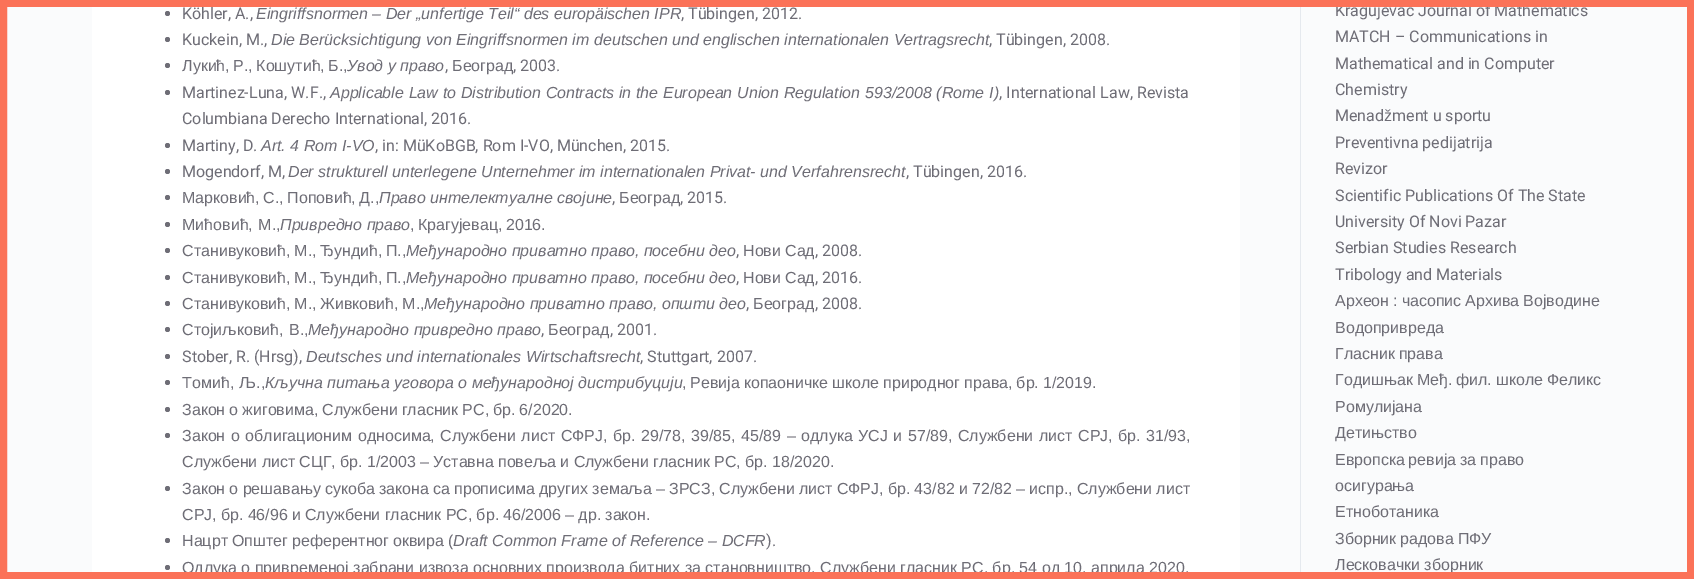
%!PS
<< /PageSize [1694 579] >> setpagedevice
0 579 translate 1 -1 scale
4 setmiterlimit
0.98 0.984 0.988 setrgbcolor
0 0 1694 579 rectfill
0.984 0.447 0.345 setrgbcolor
7 setlinewidth
3.5 -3.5 1687 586 rectstroke
0.898 0.914 0.933 setrgbcolor
1300 0 1 579 rectfill
/Roboto-Regular [16 0 0 -16 0 0] selectfont
0.431 0.427 0.463 setrgbcolor
1335 16 moveto (Kragujevac Journal of Mathematics) show
0.984 0.447 0.345 setrgbcolor
0 0 1694 7 rectfill
1 setgray
92 7 1148 565 rectfill
0.431 0.427 0.463 setrgbcolor
newpath 167.5 13.5 2.5 0 360 arc closepath fill
182 19 moveto (Köhler, A.,) show
/LiberationSans-Italic [16 0 0 -16 0 0] selectfont
256 19 moveto (Eingriffsnormen – Der „unfertige Teil“ des europäischen IPR) show
/Roboto-Regular [16 0 0 -16 0 0] selectfont
681 19 moveto (, Tübingen, 2012.) show
newpath 167.5 39.5 2.5 0 360 arc closepath fill
182 45 moveto (Kuckein, M.,) show
/LiberationSans-Italic [16 0 0 -16 0 0] selectfont
271 45 moveto (Die Berücksichtigung von Eingriffsnormen im deutschen und englischen internationalen Vertragsrecht) show
/Roboto-Regular [16 0 0 -16 0 0] selectfont
989 45 moveto (, Tübingen, 2008.) show
newpath 167.5 65.5 2.5 0 360 arc closepath fill
/LiberationSans-Regular [16 0 0 -16 0 0] selectfont
182 71 moveto -1 0 32 (Лукић, Р., Кошутић, Б.,) widthshow
/LiberationSans-Italic [16 0 0 -16 0 0] selectfont
347 71 moveto (Увод у право) show
/LiberationSans-Regular [16 0 0 -16 0 0] selectfont
452 71 moveto (Београд) show
/Roboto-Regular [16 0 0 -16 0 0] selectfont
513 71 moveto (, 2003.) show
445 71 moveto (,) show
newpath 167.5 92.5 2.5 0 360 arc closepath fill
182 98 moveto 0.3 0 32 (Martinez-Luna, W.F.,) widthshow
/LiberationSans-Italic [16 0 0 -16 0 0] selectfont
330 98 moveto 0.3 0 32 (Applicable Law to Distribution Contracts in the European Union Regulation 593/2008 \(Rome I\)) widthshow
/Roboto-Regular [16 0 0 -16 0 0] selectfont
999 98 moveto 0.3 0 32 (, International Law, Revista) widthshow
182 124 moveto (Columbiana Derecho International, 2016.) show
newpath 167.5 145.5 2.5 0 360 arc closepath fill
182 151 moveto (Martiny, D.) show
/LiberationSans-Italic [16 0 0 -16 0 0] selectfont
261 151 moveto (Art. 4 Rom I-VO) show
/Roboto-Regular [16 0 0 -16 0 0] selectfont
375 151 moveto (, in: MüKoBGB, Rom I-VO, München, 2015.) show
newpath 167.5 171.5 2.5 0 360 arc closepath fill
182 177 moveto (Mogendorf, M,) show
/LiberationSans-Italic [16 0 0 -16 0 0] selectfont
288 177 moveto (Der strukturell unterlegene Unternehmer im internationalen Privat- und Verfahrensrecht) show
/Roboto-Regular [16 0 0 -16 0 0] selectfont
906 177 moveto (, Tübingen, 2016.) show
newpath 167.5 197.5 2.5 0 360 arc closepath fill
/LiberationSans-Regular [16 0 0 -16 0 0] selectfont
182 203 moveto -1 0 32 (Марковић, С., Поповић, Д.,) widthshow
/LiberationSans-Italic [16 0 0 -16 0 0] selectfont
379 203 moveto (Право интелектуалне својине) show
/LiberationSans-Regular [16 0 0 -16 0 0] selectfont
619 203 moveto (Београд) show
/Roboto-Regular [16 0 0 -16 0 0] selectfont
680 203 moveto (, 2015.) show
612 203 moveto (,) show
newpath 167.5 224.5 2.5 0 360 arc closepath fill
/LiberationSans-Regular [16 0 0 -16 0 0] selectfont
182 230 moveto 1 0 32 (Мићовић, М.,) widthshow
/LiberationSans-Italic [16 0 0 -16 0 0] selectfont
280 230 moveto (Привредно право) show
/LiberationSans-Regular [16 0 0 -16 0 0] selectfont
410 230 moveto -1 0 32 (, Крагујевац, 2016.) widthshow
newpath 167.5 250.5 2.5 0 360 arc closepath fill
182 256 moveto -1 0 32 (Станивуковић, М., Ђундић, П.,) widthshow
/LiberationSans-Italic [16 0 0 -16 0 0] selectfont
406 256 moveto (Међународно приватно право, посебни део) show
/LiberationSans-Regular [16 0 0 -16 0 0] selectfont
743 256 moveto (Нови) show
785 256 moveto (Сад) show
/Roboto-Regular [16 0 0 -16 0 0] selectfont
815 256 moveto (, 2008.) show
736 256 moveto (,) show
newpath 167.5 277.5 2.5 0 360 arc closepath fill
/LiberationSans-Regular [16 0 0 -16 0 0] selectfont
182 283 moveto -1 0 32 (Станивуковић, М., Ђундић, П.,) widthshow
/LiberationSans-Italic [16 0 0 -16 0 0] selectfont
406 283 moveto (Међународно приватно право, посебни део) show
/LiberationSans-Regular [16 0 0 -16 0 0] selectfont
743 283 moveto (Нови) show
785 283 moveto (Сад) show
/Roboto-Regular [16 0 0 -16 0 0] selectfont
815 283 moveto (, 2016.) show
736 283 moveto (,) show
newpath 167.5 303.5 2.5 0 360 arc closepath fill
/LiberationSans-Regular [16 0 0 -16 0 0] selectfont
182 309 moveto -1 0 32 (Станивуковић, М., Живковић, М.,) widthshow
/LiberationSans-Italic [16 0 0 -16 0 0] selectfont
424 309 moveto (Међународно приватно право, општи део) show
/LiberationSans-Regular [16 0 0 -16 0 0] selectfont
753 309 moveto (Београд) show
/Roboto-Regular [16 0 0 -16 0 0] selectfont
815 309 moveto (, 2008.) show
746 309 moveto (,) show
newpath 167.5 329.5 2.5 0 360 arc closepath fill
/LiberationSans-Regular [16 0 0 -16 0 0] selectfont
182 335 moveto 1 0 32 (Стојиљковић, В.,) widthshow
/LiberationSans-Italic [16 0 0 -16 0 0] selectfont
308 335 moveto (Међународно привредно право) show
/LiberationSans-Regular [16 0 0 -16 0 0] selectfont
548 335 moveto (Београд) show
/Roboto-Regular [16 0 0 -16 0 0] selectfont
610 335 moveto (, 2001.) show
541 335 moveto (,) show
newpath 167.5 356.5 2.5 0 360 arc closepath fill
182 362 moveto (Stober, R. \(Hrsg\),) show
/LiberationSans-Italic [16 0 0 -16 0 0] selectfont
306 362 moveto (Deutsches und internationales Wirtschaftsrecht) show
/Roboto-Regular [16 0 0 -16 0 0] selectfont
640 362 moveto (, Stuttgart, 2007.) show
newpath 167.5 382.5 2.5 0 360 arc closepath fill
/LiberationSans-Regular [16 0 0 -16 0 0] selectfont
182 388 moveto 1 0 32 (Томић, Љ.,) widthshow
/LiberationSans-Italic [16 0 0 -16 0 0] selectfont
265 388 moveto (Кључна питања уговора о међународној дистрибуцији) show
/LiberationSans-Regular [16 0 0 -16 0 0] selectfont
682 388 moveto -0.5 0 32 (, Ревија копаоничке школе природног права, бр. 1/2019.) widthshow
newpath 167.5 409.5 2.5 0 360 arc closepath fill
182 415 moveto -0.5 0 32 (Закон о жиговима, Службени гласник РС, бр. 6/2020.) widthshow
newpath 167.5 435.5 2.5 0 360 arc closepath fill
182 441 moveto 1.1 0 32 (Закон о облигационим односима, Службени лист СФРЈ, бр. 29/78, 39/85, 45/89 – одлука УСЈ и 57/89, Службени лист СРЈ, бр. 31/93,) widthshow
182 467 moveto -0.25 0 32 (Службени лист СЦГ, бр. 1/2003 – Уставна повеља и Службени гласник РС, бр. 18/2020.) widthshow
newpath 167.5 488.5 2.5 0 360 arc closepath fill
182 494 moveto -0.25 0 32 (Закон о решавању сукоба закона са прописима других земаља – ЗРСЗ, Службени лист СФРЈ, бр. 43/82 и 72/82 – испр., Службени лист) widthshow
182 520 moveto -0.25 0 32 (СРЈ, бр. 46/96 и Службени гласник РС, бр. 46/2006 – др. закон.) widthshow
newpath 167.5 540.5 2.5 0 360 arc closepath fill
182 546 moveto -0.5 0 32 (Нацрт Општег референтног оквира \() widthshow
/LiberationSans-Italic [16 0 0 -16 0 0] selectfont
453 546 moveto (Draft Common Frame of Reference – DCFR) show
/Roboto-Regular [16 0 0 -16 0 0] selectfont
766 546 moveto (\).) show
newpath 167.5 567.5 2.5 0 360 arc closepath fill
/LiberationSans-Regular [16 0 0 -16 0 0] selectfont
182 573 moveto (Одлука о привременој забрани извоза основних производа битних за становништво, Службени гласник РС, бр. 54 од 10. априла 2020.) show
/Roboto-Regular [16 0 0 -16 0 0] selectfont
1335 42 moveto (MATCH – Communications in) show
1335 69 moveto (Mathematical and in Computer) show
1335 95 moveto (Chemistry) show
1335 121 moveto (Menad) show
/LiberationSans-Regular [16 0 0 -16 0 0] selectfont
1384 121 moveto (ž) show
/Roboto-Regular [16 0 0 -16 0 0] selectfont
1392 121 moveto (ment u sportu) show
1335 148 moveto (Preventivna pedijatrija) show
1335 174 moveto (Revizor) show
1335 201 moveto (Scientific Publications Of The State) show
1335 227 moveto (University Of Novi Pazar) show
1335 253 moveto (Serbian Studies Research) show
1335 280 moveto (Tribology and Materials) show
/LiberationSans-Regular [16 0 0 -16 0 0] selectfont
1335 306 moveto -0.5 0 32 (Археон : часопис Архива Војводине) widthshow
1335 333 moveto (Водопривреда) show
1335 359 moveto -0.5 0 32 (Гласник права) widthshow
1335 385 moveto -0.5 0 32 (Годишњак Међ. фил. школе Феликс) widthshow
1335 412 moveto (Ромулијана) show
1335 438 moveto (Детињство) show
1335 465 moveto -0.5 0 32 (Европска ревија за право) widthshow
1335 491 moveto (осигурања) show
1335 517 moveto (Eтноботаника) show
1335 544 moveto -0.5 0 32 (Зборник радова ПФУ) widthshow
1335 570 moveto (Лесковачки зборник) show
0.984 0.447 0.345 setrgbcolor
0 572 1694 7 rectfill
showpage
